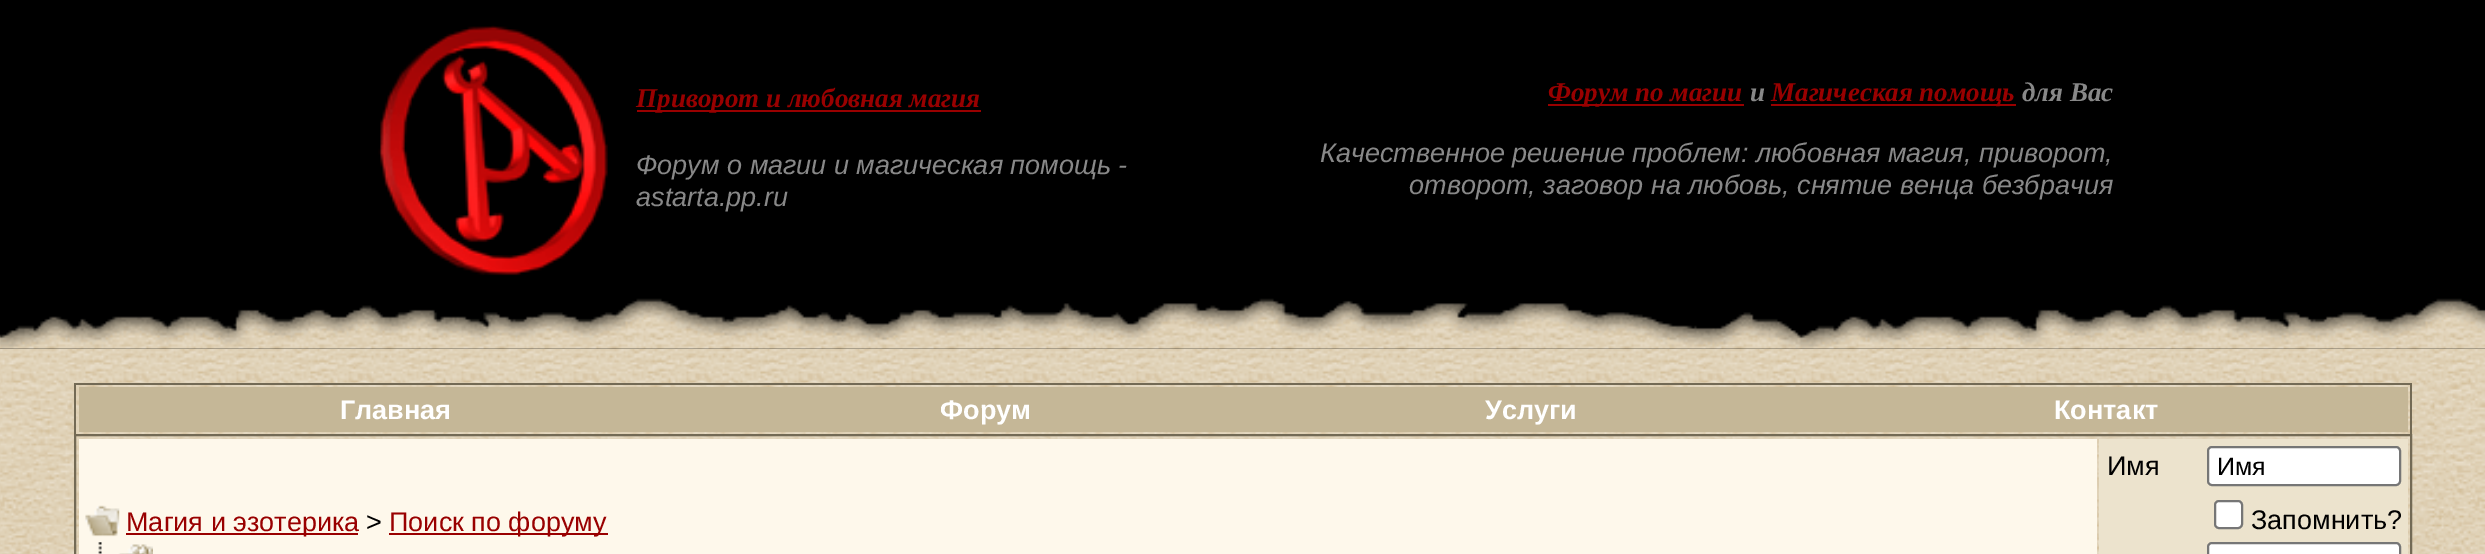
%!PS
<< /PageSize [2485 554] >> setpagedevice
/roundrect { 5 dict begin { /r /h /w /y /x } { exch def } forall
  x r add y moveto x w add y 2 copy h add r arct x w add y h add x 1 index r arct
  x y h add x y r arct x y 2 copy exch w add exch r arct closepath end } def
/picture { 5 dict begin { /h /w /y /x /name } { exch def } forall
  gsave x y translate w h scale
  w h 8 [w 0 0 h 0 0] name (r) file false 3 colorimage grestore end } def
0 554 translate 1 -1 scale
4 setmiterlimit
1 setgray
0 0 2485 554 rectfill
(img1.rgb) 0 349 2485 205 picture
0 setgray
0 0 2485 349 rectfill
(img2.rgb) 0 298 2485 51 picture
(img3.rgb) 378 25 230 251 picture
0.6 0 0 setrgbcolor
637 110 344 2 rectfill
/LiberationSerif-BoldItalic [27 0 0 -27 0 0] selectfont
636 107 moveto (Приворот и любовная магия) show
/LiberationSans-Italic [27 0 0 -27 0 0] selectfont
0.533 setgray
636 174 moveto (Форум о магии и магическая помощь -) show
636 206 moveto (astarta.pp.ru) show
0.6 0 0 setrgbcolor
1548 104 196 2 rectfill
/LiberationSerif-BoldItalic [27 0 0 -27 0 0] selectfont
1548 101 moveto (Форум по магии) show
0.533 setgray
1750 101 moveto (и) show
0.6 0 0 setrgbcolor
1771 104 245 2 rectfill
1771 101 moveto (Магическая помощь) show
0.533 setgray
2022 101 moveto (для Вас) show
/LiberationSans-Italic [27 0 0 -27 0 0] selectfont
1320 162 moveto (Качественное решение проблем: любовная магия, приворот,) show
1409 194 moveto (отворот, заговор на любовь, снятие венца безбрачия) show
0.451 0.416 0.333 setrgbcolor
74 383 2338 2 rectfill
2410 383 2 51 rectfill
74 383 2 51 rectfill
0.773 0.718 0.592 setrgbcolor
79 387 2329 45 rectfill
/LiberationSans-Bold [27 0 0 -27 0 0] selectfont
1 setgray
340 419 moveto (Главная) show
940 419 moveto (Форум) show
1485 419 moveto (Услуги) show
2054 419 moveto (Контакт) show
0.451 0.416 0.333 setrgbcolor
2 setlinewidth
75 435 2336 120 rectstroke
0.996 0.973 0.922 setrgbcolor
79 439 2018 115 rectfill
(img4.rgb) 85 505 35 32 picture
0.6 0 0 setrgbcolor
126 533 232 2 rectfill
/LiberationSans-Regular [27 0 0 -27 0 0] selectfont
126 531 moveto (Магия и эзотерика) show
0 setgray
366 531 moveto (>) show
0.6 0 0 setrgbcolor
389 533 219 2 rectfill
389 531 moveto (Поиск по форуму) show
(img5.rgb) 98 542 55 12 picture
0.925 0.89 0.804 setrgbcolor
2099 439 309 115 rectfill
0 setgray
2107 475 moveto (Имя) show
1 setgray
2208 447 192 38 4 roundrect gsave fill grestore
0.463 setgray
stroke
/LiberationSans-Regular [25 0 0 -25 0 0] selectfont
0 setgray
2217 475 moveto (Имя) show
1 setgray
2215 501 27 27 4 roundrect gsave fill grestore
0.463 setgray
stroke
/LiberationSans-Regular [27 0 0 -27 0 0] selectfont
0 setgray
2251 529 moveto (Запомнить?) show
1 setgray
2208 543 192 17 4 roundrect gsave fill grestore
0.463 setgray
stroke
showpage
